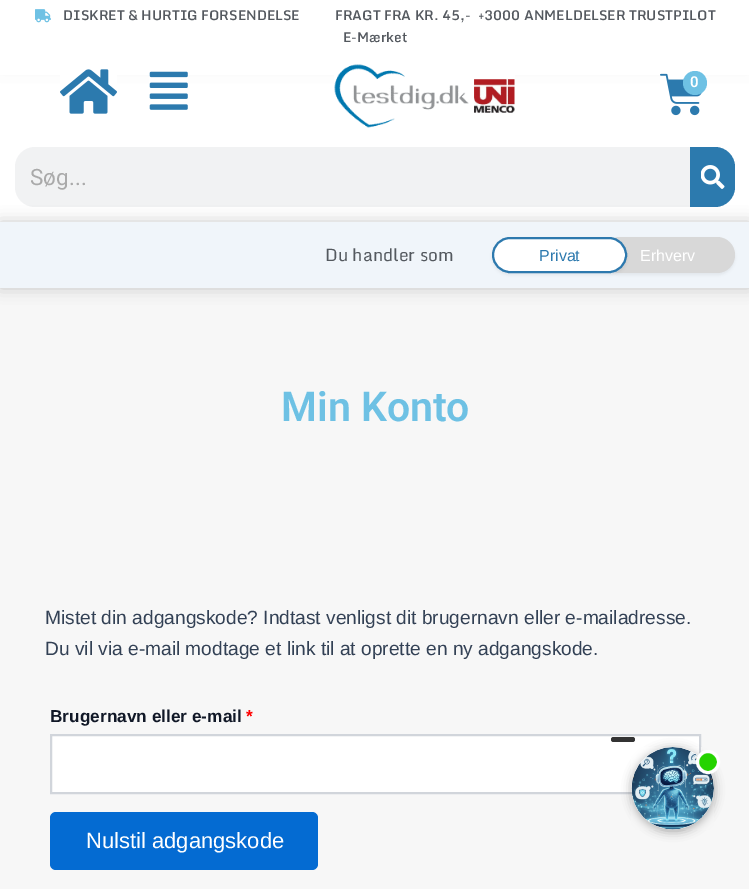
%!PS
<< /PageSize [749 889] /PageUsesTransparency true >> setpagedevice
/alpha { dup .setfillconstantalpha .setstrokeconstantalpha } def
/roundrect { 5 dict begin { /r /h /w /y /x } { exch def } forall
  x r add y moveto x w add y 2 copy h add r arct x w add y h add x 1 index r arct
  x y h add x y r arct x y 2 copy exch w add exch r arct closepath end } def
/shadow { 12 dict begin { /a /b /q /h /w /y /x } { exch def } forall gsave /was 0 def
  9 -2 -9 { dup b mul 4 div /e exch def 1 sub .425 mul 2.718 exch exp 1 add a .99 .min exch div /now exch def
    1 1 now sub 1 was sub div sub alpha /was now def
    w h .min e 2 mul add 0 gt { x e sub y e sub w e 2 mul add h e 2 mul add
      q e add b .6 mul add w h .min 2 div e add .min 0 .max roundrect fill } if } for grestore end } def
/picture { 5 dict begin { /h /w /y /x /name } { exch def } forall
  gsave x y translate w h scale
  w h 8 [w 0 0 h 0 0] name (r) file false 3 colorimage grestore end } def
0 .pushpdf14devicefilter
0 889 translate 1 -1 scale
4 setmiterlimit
1 setgray
0 0 749 889 rectfill
gsave
newpath 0 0 moveto 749 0 lineto 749 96 lineto 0 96 lineto closepath 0 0 moveto 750 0 lineto 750 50 lineto 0 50 lineto closepath eoclip newpath
0 setgray
0 0 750 50 0 15 0.2 shadow
grestore
(img1.rgb) 35 9 16 14 picture
/Monda-SemiBold [13.5 0 0 -13.5 0 0] selectfont
0.329 0.349 0.373 setrgbcolor
63 20 moveto (DISKRET & HURTIG FORSENDELSE) show
335 20 moveto (FRAGT FRA KR. 45,-) show
478 20 moveto (+3000 ANMELDELSER TRUSTPILOT) show
343 42 moveto (E-Mærket) show
1 setgray
0 50 749 25 rectfill
(img2.rgb) 60 69 57 45 picture
(img3.rgb) 149 71 39 39 picture
(img4.rgb) 334 64 181 64 picture
(img5.rgb) 660 73 42 43 picture
0.431 0.757 0.894 setrgbcolor
newpath 695 83 12 0 360 arc closepath fill
/Roboto-SemiBold [15 0 0 -15 0 0] selectfont
1 setgray
690 87 moveto (0) show
0.945 0.949 0.953 setrgbcolor
15 147 720 60 20 roundrect fill
/Roboto-Regular [22.5 0 0 -22.5 0 0] selectfont
0.667 setgray
30 185 moveto (Søg...) show
0.173 0.478 0.682 setrgbcolor
newpath 690 147 moveto 715 147 lineto 726 147 735 156 735 167 curveto 735 187 lineto 735 198 726 207 715 207 curveto 690 207 lineto closepath fill
(img6.rgb) 701 165 24 24 picture
0.969 setgray
0 288 749 601 rectfill
0 setgray
0 222 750 66 0 7.5 0.2 shadow
0.941 0.961 0.98 setrgbcolor
0 222 749 66 rectfill
/Monda-Regular [17.25 0 0 -17.25 0 0] selectfont
0.329 0.349 0.373 setrgbcolor
325 261 moveto (Du handler som) show
0 setgray
602 239 133 36 18 1.5 0.05 shadow
0.847 setgray
602 237 133 36 18 roundrect fill
0 setgray
492 239 135 36 18 1.5 0.05 shadow
1 setgray
493 238 133 34 17 roundrect gsave fill grestore
0.176 0.475 0.682 setrgbcolor
2 setlinewidth
stroke
/LiberationSans-Regular [16 0 0 -16 0 0] selectfont
539 261 moveto (Privat) show
1 setgray
640 261 moveto (Erhverv) show
/Roboto-SemiBold [41 0 0 -41 0 0] selectfont
0.431 0.757 0.894 setrgbcolor
281 421 moveto (Min Konto) show
/LiberationSans-Regular [19.15 0 0 -19.15 0 0] selectfont
0.2 0.255 0.333 setrgbcolor
45 624 moveto (Mistet din adgangskode? Indtast venligst dit brugernavn eller e-mailadresse.) show
45 655 moveto (Du vil via e-mail modtage et link til at oprette en ny adgangskode.) show
/LiberationSans-Bold [17.25 0 0 -17.25 0 0] selectfont
0.067 0.094 0.153 setrgbcolor
50 722 moveto (Brugernavn eller e-mail) show
1 0 0 setrgbcolor
246 722 moveto (*) show
1 setgray
newpath 51 735 moveto 700 735 lineto 700 793 lineto 51 793 lineto closepath gsave fill grestore
0.82 0.835 0.859 setrgbcolor
stroke
0.016 0.42 0.824 setrgbcolor
50 812 268 58 6 roundrect fill
/LiberationSans-Regular [22 0 0 -22 0 0] selectfont
1 setgray
86 848 moveto (Nulstil adgangskode) show
0.2 setgray
611 737 24 5 2.5 roundrect fill
0 setgray
632 749 82 82 41 5 0.35 shadow
(img7.rgb) 631 747 83 83 picture
0.145 0.827 0 setrgbcolor
newpath 708 762 10.5 0 360 arc closepath gsave fill grestore
1 setgray
3 setlinewidth
stroke
.poppdf14devicefilter showpage
